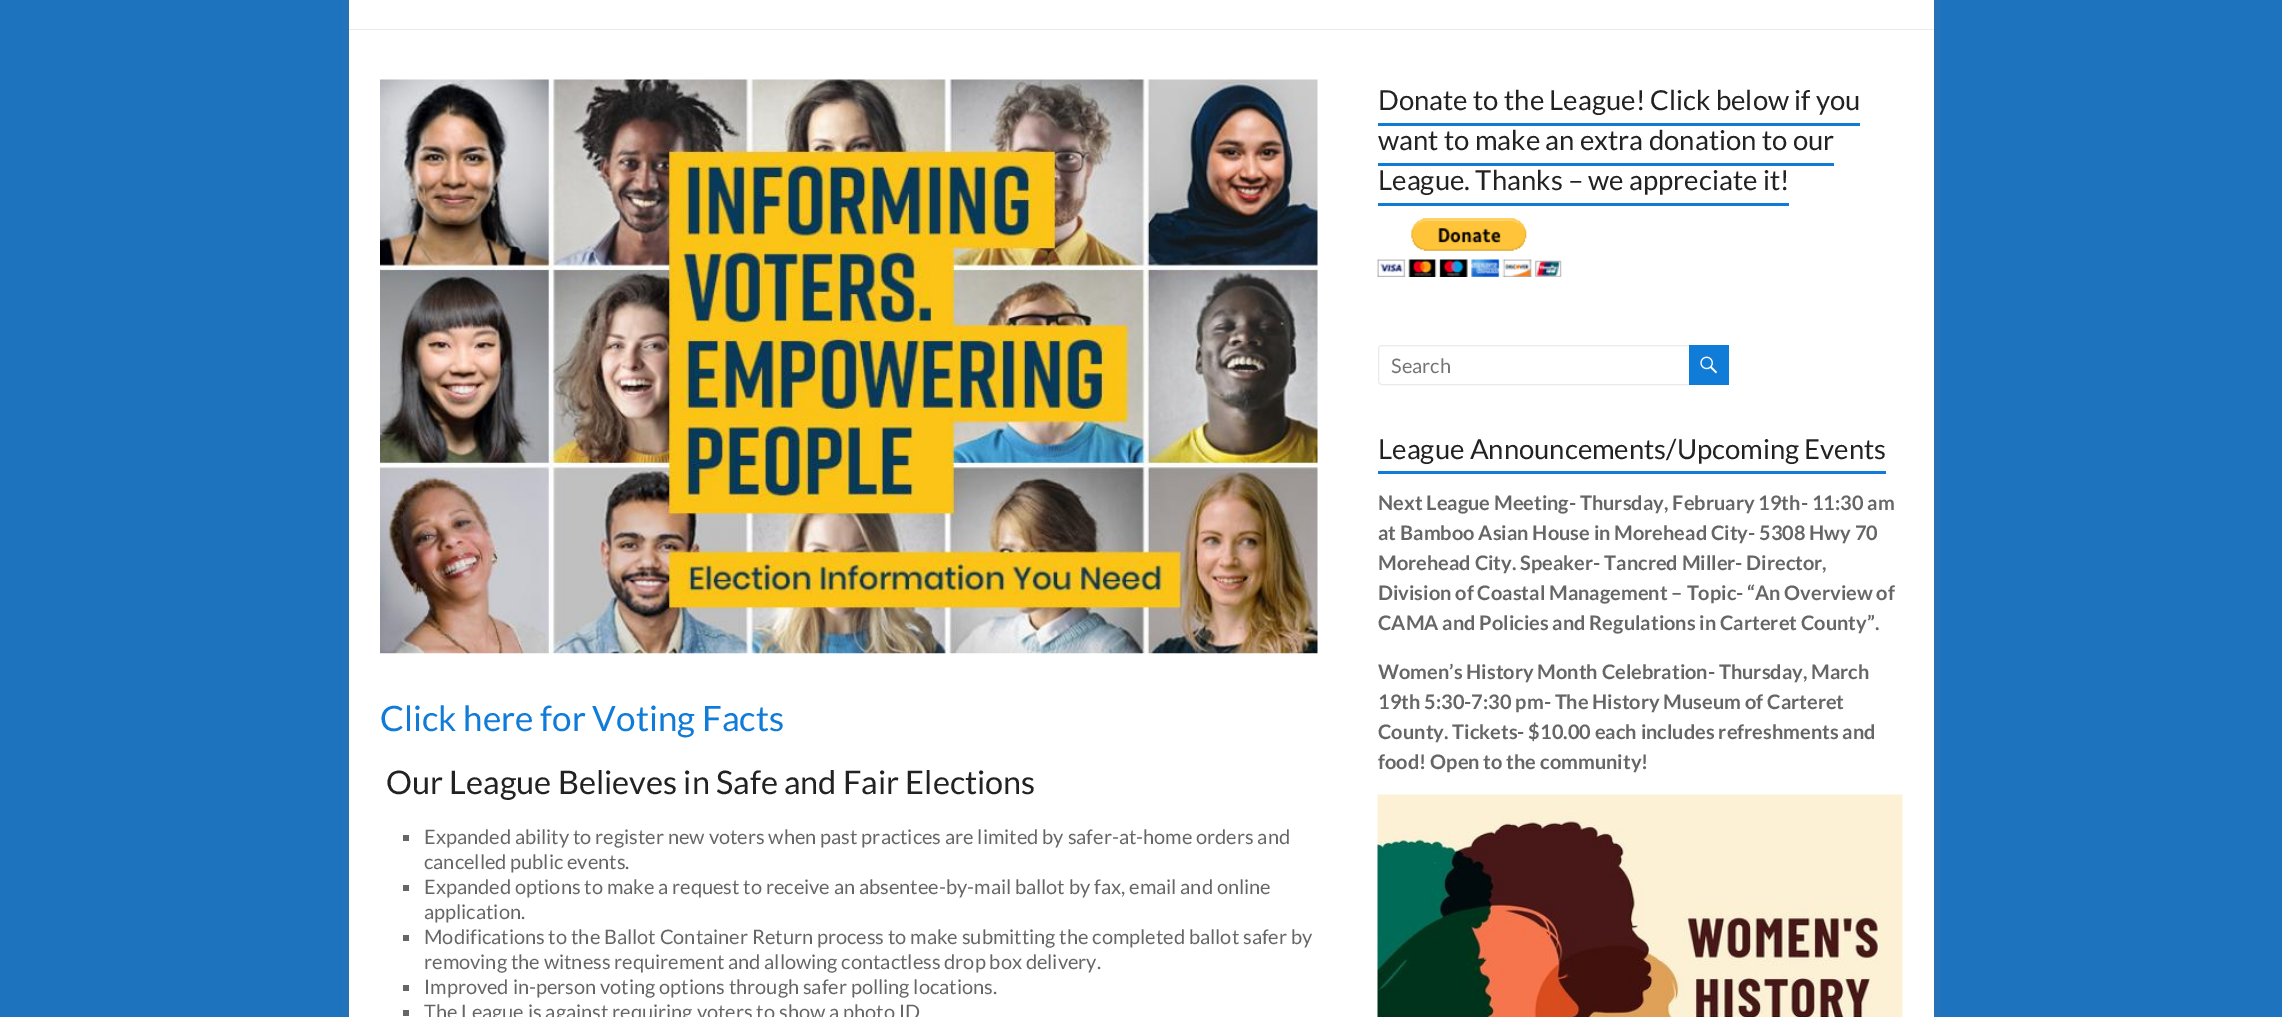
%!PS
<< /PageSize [2282 1017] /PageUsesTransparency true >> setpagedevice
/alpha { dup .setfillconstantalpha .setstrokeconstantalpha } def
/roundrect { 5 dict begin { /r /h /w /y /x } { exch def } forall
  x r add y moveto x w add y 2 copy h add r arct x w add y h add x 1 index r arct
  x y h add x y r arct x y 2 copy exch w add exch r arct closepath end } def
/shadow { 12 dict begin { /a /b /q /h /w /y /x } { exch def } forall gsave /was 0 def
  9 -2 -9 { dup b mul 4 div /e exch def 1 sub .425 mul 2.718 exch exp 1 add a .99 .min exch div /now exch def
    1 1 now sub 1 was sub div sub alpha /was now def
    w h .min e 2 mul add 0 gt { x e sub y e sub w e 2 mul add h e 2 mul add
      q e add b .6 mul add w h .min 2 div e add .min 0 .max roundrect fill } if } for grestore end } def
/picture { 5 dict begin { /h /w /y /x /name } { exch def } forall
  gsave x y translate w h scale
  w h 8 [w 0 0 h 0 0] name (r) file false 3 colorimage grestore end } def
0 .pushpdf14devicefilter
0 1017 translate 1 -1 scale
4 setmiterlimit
0.118 0.451 0.745 setrgbcolor
0 0 2282 1017 rectfill
0.392 setgray
349 -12 1585 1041 0 4 0.3 shadow
1 setgray
349 0 1585 1017 rectfill
0.918 setgray
349 29 1585 1 rectfill
/Lato-Regular [27.5 0 0 -27.5 0 0] selectfont
0.133 setgray
1378 110 moveto (Donate to the League! Click below if you) show
1378 150 moveto (want to make an extra donation to our) show
0.067 0.482 0.847 setrgbcolor
1378 123 482 3 rectfill
0.133 setgray
1378 190 moveto (League. Thanks – we appreciate it!) show
0.067 0.482 0.847 setrgbcolor
1378 163 456 3 rectfill
1378 203 411 3 rectfill
(img1.rgb) 1377 218 185 59 picture
0.918 setgray
1378.5 345.5 314 39 3.5 roundrect stroke
/Lato-Regular [20 0 0 -20 0 0] selectfont
0.459 setgray
1391 373 moveto (Search) show
0.067 0.482 0.847 setrgbcolor
1689 345 40 40 rectfill
(img2.rgb) 1700 356 18 18 picture
/Lato-Regular [27.5 0 0 -27.5 0 0] selectfont
0.133 setgray
1378 459 moveto (League Announcements/Upcoming Events) show
0.067 0.482 0.847 setrgbcolor
1378 471 508 3 rectfill
/Lato-Bold [20 0 0 -20 0 0] selectfont
0.4 setgray
1378 510 moveto (Next League Meeting- Thursday, February 19th- 11:30 am) show
1378 540 moveto (at Bamboo Asian House in Morehead City- 5308 Hwy 70) show
1378 570 moveto (Morehead City. Speaker- Tancred Miller- Director,) show
1378 600 moveto (Division of Coastal Management – Topic- “An Overview of) show
1378 630 moveto (CAMA and Policies and Regulations in Carteret County”.) show
1378 679 moveto (Women’s History Month Celebration- Thursday, March) show
1378 709 moveto (19th 5:30-7:30 pm- The History Museum of Carteret) show
1378 739 moveto (County. Tickets- $10.00 each includes refreshments and) show
1378 769 moveto (food! Open to the community!) show
(img3.rgb) 1377 794 526 223 picture
(img4.rgb) 380 79 938 575 picture
/Lato-Regular [35 0 0 -35 0 0] selectfont
0.067 0.482 0.847 setrgbcolor
380 731 moveto (Click here for Voting Facts) show
/Lato-Regular [32.5 0 0 -32.5 0 0] selectfont
0.133 setgray
386 794 moveto (Our League Believes in Safe and Fair Elections) show
0.4 setgray
403 835 6 6 rectfill
/Lato-Regular [20 0 0 -20 0 0] selectfont
424 844 moveto (Expanded ability to register new voters when past practices are limited by safer-at-home orders and) show
424 869 moveto (cancelled public events.) show
403 885 6 6 rectfill
424 894 moveto (Expanded options to make a request to receive an absentee-by-mail ballot by fax, email and online) show
424 919 moveto (application.) show
403 935 6 6 rectfill
424 944 moveto (Modifications to the Ballot Container Return process to make submitting the completed ballot safer by) show
424 969 moveto (removing the witness requirement and allowing contactless drop box delivery.) show
403 985 6 6 rectfill
424 994 moveto (Improved in-person voting options through safer polling locations.) show
403 1010 6 6 rectfill
424 1019 moveto (The League is against requiring voters to show a photo ID) show
.poppdf14devicefilter showpage
